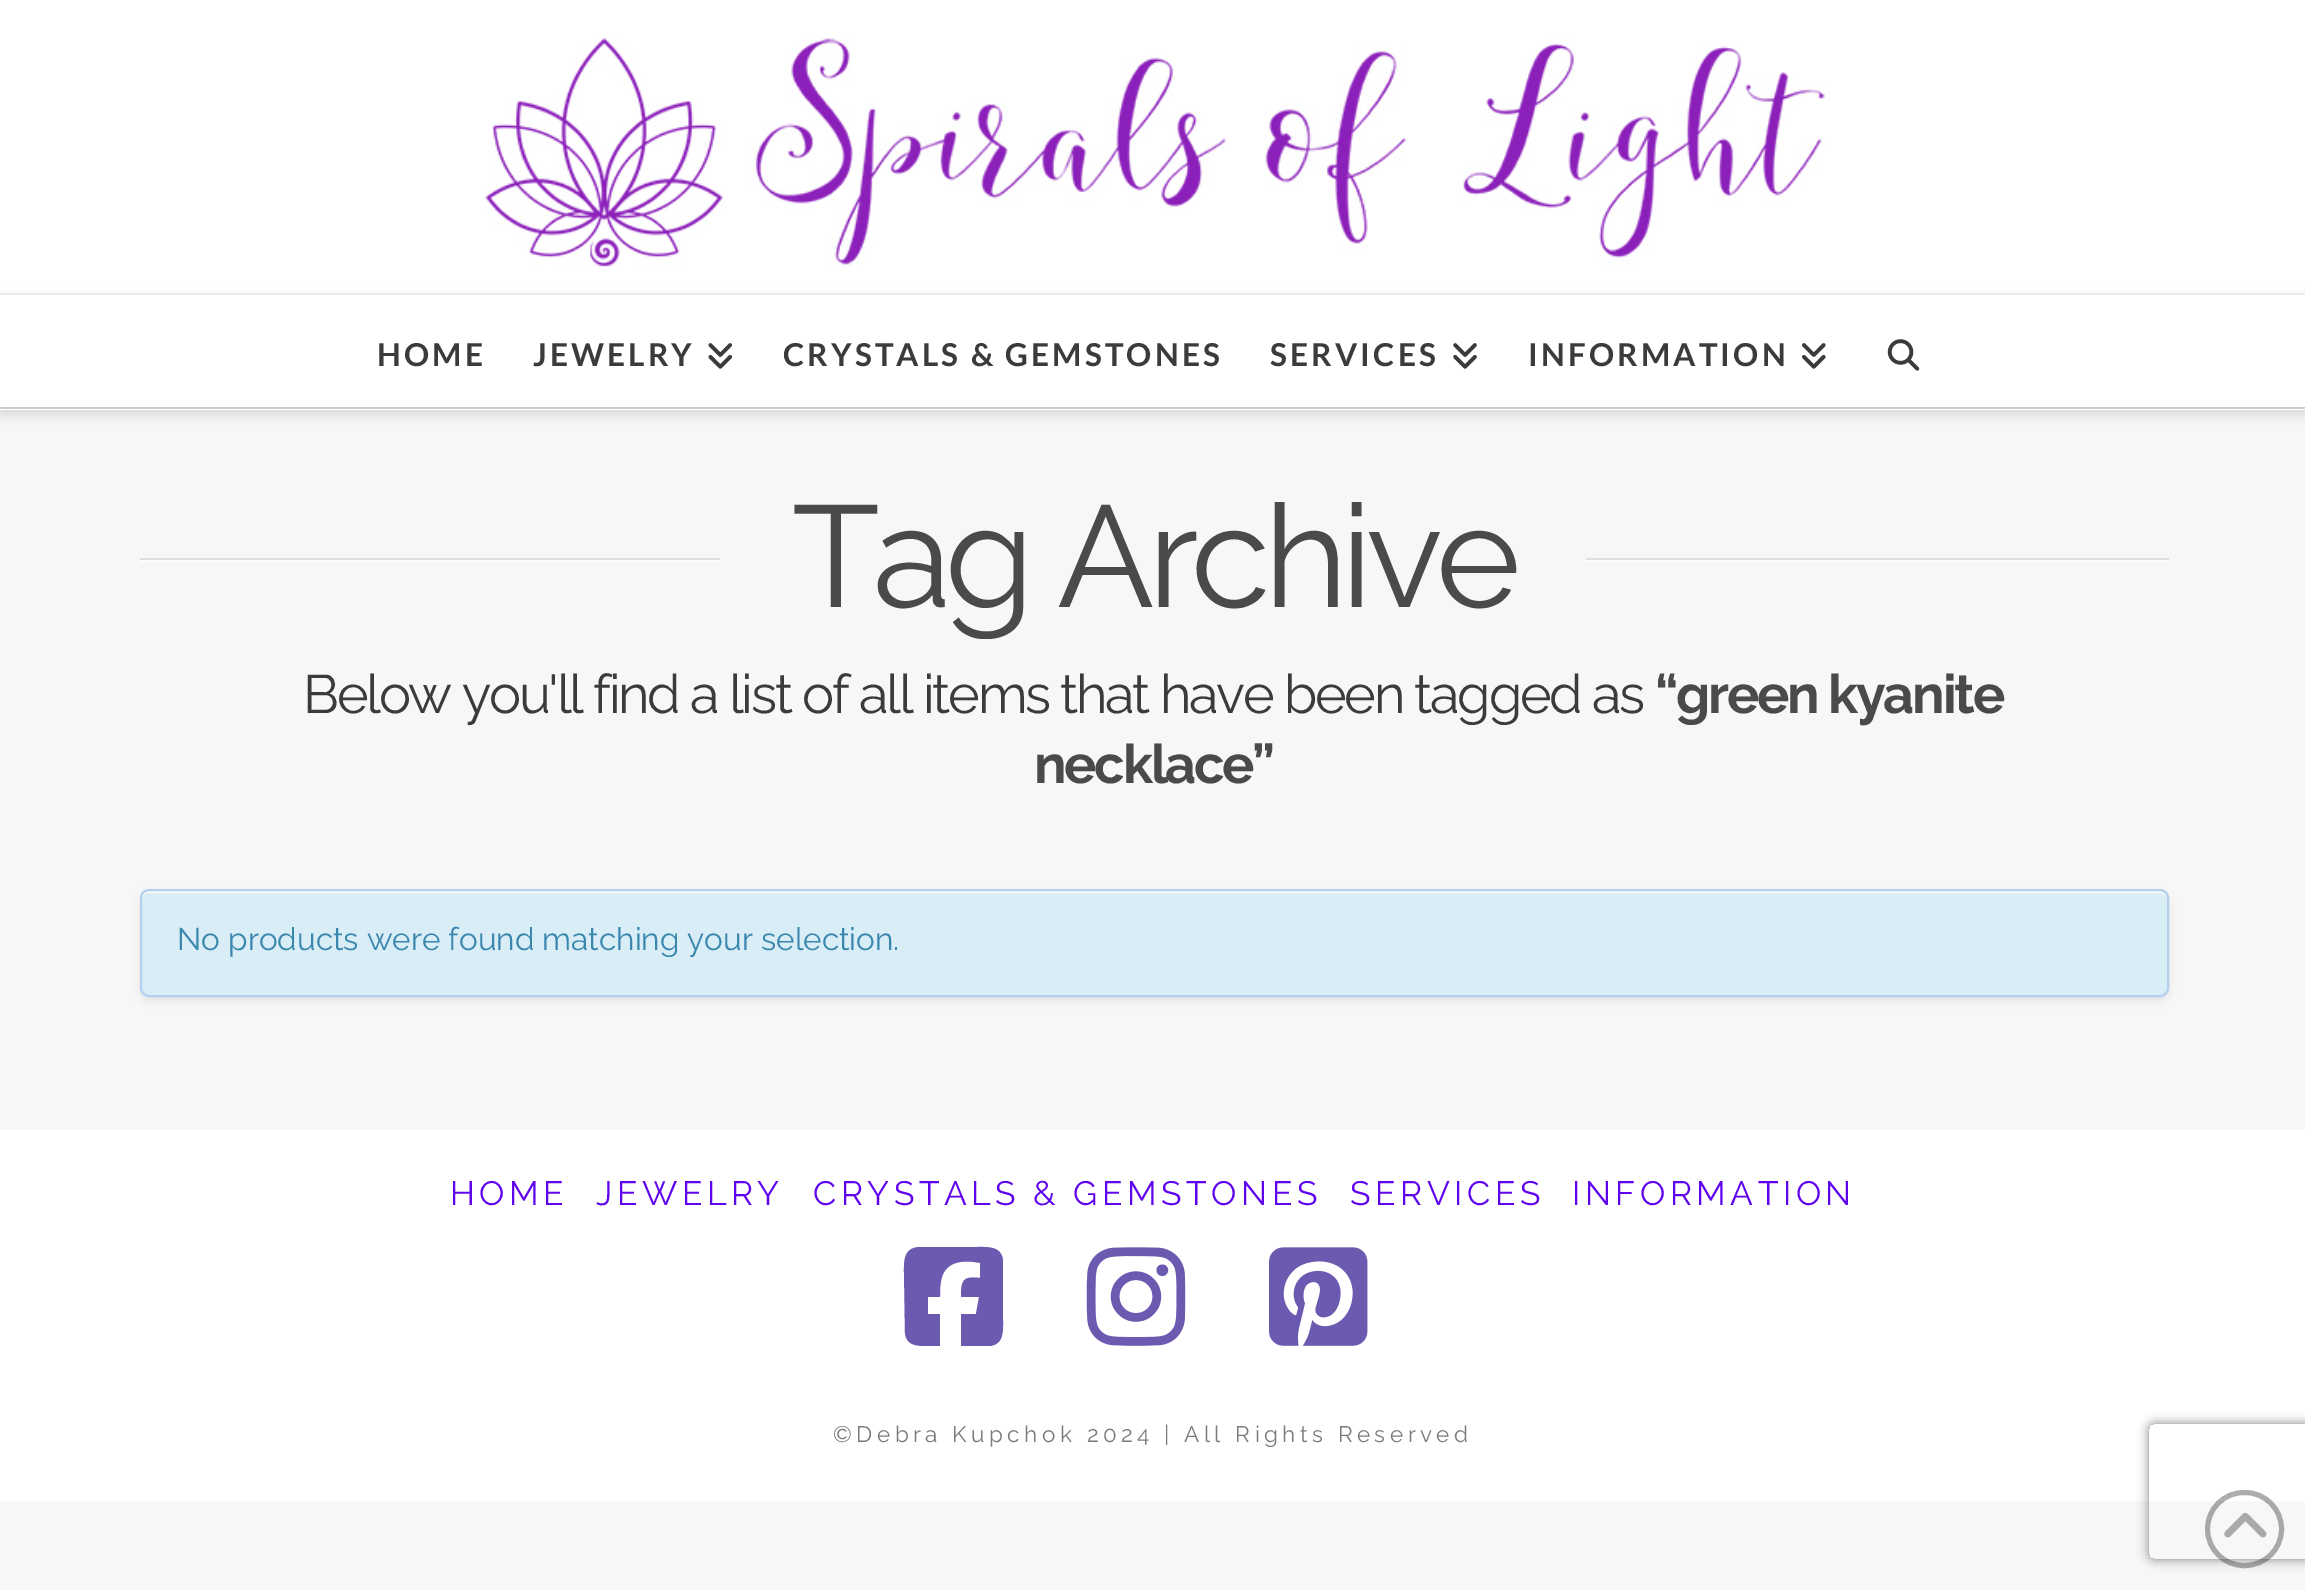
%!PS
<< /PageSize [2305 1590] /PageUsesTransparency true >> setpagedevice
/alpha { dup .setfillconstantalpha .setstrokeconstantalpha } def
/roundrect { 5 dict begin { /r /h /w /y /x } { exch def } forall
  x r add y moveto x w add y 2 copy h add r arct x w add y h add x 1 index r arct
  x y h add x y r arct x y 2 copy exch w add exch r arct closepath end } def
/shadow { 12 dict begin { /a /b /q /h /w /y /x } { exch def } forall gsave /was 0 def
  9 -2 -9 { dup b mul 4 div /e exch def 1 sub .425 mul 2.718 exch exp 1 add a .99 .min exch div /now exch def
    1 1 now sub 1 was sub div sub alpha /was now def
    w h .min e 2 mul add 0 gt { x e sub y e sub w e 2 mul add h e 2 mul add
      q e add b .6 mul add w h .min 2 div e add .min 0 .max roundrect fill } if } for grestore end } def
/picture { 5 dict begin { /h /w /y /x /name } { exch def } forall
  gsave x y translate w h scale
  w h 8 [w 0 0 h 0 0] name (r) file false 3 colorimage grestore end } def
0 .pushpdf14devicefilter
0 1590 translate 1 -1 scale
4 setmiterlimit
0.969 setgray
0 0 2305 1590 rectfill
1 setgray
0 0 2305 293 rectfill
0.949 setgray
0 293 2305 2 rectfill
(img1.rgb) 485 36 1340 231 picture
0 setgray
0 299 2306 115 0 6.5 0.13 shadow
1 setgray
0 295 2305 115 rectfill
0.8 setgray
0 407 2305 2 rectfill
/Lato-Bold [31.5 0 0 -31.5 0 0] selectfont
0.235 0.231 0.231 setrgbcolor
377 366 moveto 3.1 0 (HOME) ashow
533 366 moveto 3.1 0 (JEWELRY) ashow
(img2.rgb) 708 343 25 26 picture
783 366 moveto 3.1 0 (CRYSTALS & GEMSTONES) ashow
1270 366 moveto 3.1 0 (SERVICES) ashow
(img3.rgb) 1453 343 24 26 picture
1528 366 moveto 3.1 0 (INFORMATION) ashow
(img4.rgb) 1802 343 24 26 picture
(img5.rgb) 1887 339 33 32 picture
0.992 setgray
140 560 580 2 rectfill
0.871 setgray
140 558 580 2 rectfill
/Raleway-Regular [144 0 0 -144 0 0] selectfont
0.294 0.286 0.286 setrgbcolor
792 607 moveto -6.75 0 (Tag Archive) ashow
0.992 setgray
1586 560 583 2 rectfill
0.871 setgray
1586 558 583 2 rectfill
/Raleway-Regular [54 0 0 -54 0 0] selectfont
0.235 0.231 0.231 setrgbcolor
303 713 moveto -2.25 0 (Below you'll find a list of all items that have been tagged as) ashow
/Raleway-Bold [54 0 0 -54 0 0] selectfont
0.294 0.286 0.286 setrgbcolor
1655 713 moveto -2.25 0 (“green kyanite) ashow
1034 783 moveto -2.25 0 (necklace”) ashow
0 setgray
140 893 2029 108 9 3.5 0.07 shadow
0.851 0.929 0.969 setrgbcolor
140 889 2029 108 9 roundrect fill
0.969 0.984 0.992 setrgbcolor
newpath 148 893 moveto 2160 893 lineto 2164 893 2167 896 2167 900 curveto 2167 896 2165 891 2160 891 curveto 149 891 lineto 144 891 142 896 142 900 curveto 142 896 145 893 148 893 curveto closepath fill
0.702 0.82 0.937 setrgbcolor
2 setlinewidth
141 890 2027 106 8 roundrect stroke
/Raleway-Regular [31.5 0 0 -31.5 0 0] selectfont
0.227 0.529 0.678 setrgbcolor
177 950 moveto (No products were found matching your selection.) show
1 setgray
0 1130 2305 371 rectfill
/Raleway-Regular [33.75 0 0 -33.75 0 0] selectfont
0.376 0.012 0.929 setrgbcolor
450 1205 moveto 4.5 0 (HOME) ashow
596 1205 moveto 4.5 0 (JEWELRY) ashow
813 1205 moveto 4.5 0 (CRYSTALS & GEMSTONES) ashow
1350 1205 moveto 4.5 0 (SERVICES) ashow
1572 1205 moveto 4.5 0 (INFORMATION) ashow
0.42 0.353 0.686 setrgbcolor
newpath 919 1247 moveto 903 1248 904 1262 904 1273 curveto 905 1333 lineto 906 1345 916 1346 926 1346 curveto 940 1346 lineto 940 1314 lineto 928 1314 lineto 928 1297 lineto 940 1297 lineto 940 1290 940 1283 942 1277 curveto 947 1260 966 1260 980 1263 curveto 980 1278 lineto 963 1276 961 1280 961 1297 curveto 979 1297 lineto 976 1314 lineto 961 1314 lineto 961 1346 lineto 990 1346 lineto 1004 1344 1003 1331 1003 1320 curveto 1003 1260 lineto 1001 1246 988 1247 977 1247 curveto closepath fill
(img6.rgb) 1086 1247 100 99 picture
(img7.rgb) 1269 1247 99 99 picture
/Raleway-Regular [22.5 0 0 -22.5 0 0] selectfont
0.478 setgray
833 1442 moveto 4.5 0 (©Debra Kupchok 2024 | All Rights Reserved) ashow
gsave
newpath 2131 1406 moveto 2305 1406 lineto 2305 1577 lineto 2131 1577 lineto closepath 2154 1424 moveto 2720 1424 lineto 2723 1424 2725 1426 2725 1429 curveto 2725 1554 lineto 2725 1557 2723 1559 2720 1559 curveto 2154 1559 lineto 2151 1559 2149 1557 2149 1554 curveto 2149 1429 lineto 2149 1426 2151 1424 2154 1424 curveto closepath eoclip newpath
0.502 setgray
2149 1424 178 135 5 5.5 1 shadow
grestore
0.38 alpha
0.153 setgray
5 setlinewidth
2207.5 1492.5 74 73 36.5 roundrect stroke
1 alpha
(img8.rgb) 2224 1512 43 26 picture
.poppdf14devicefilter showpage
